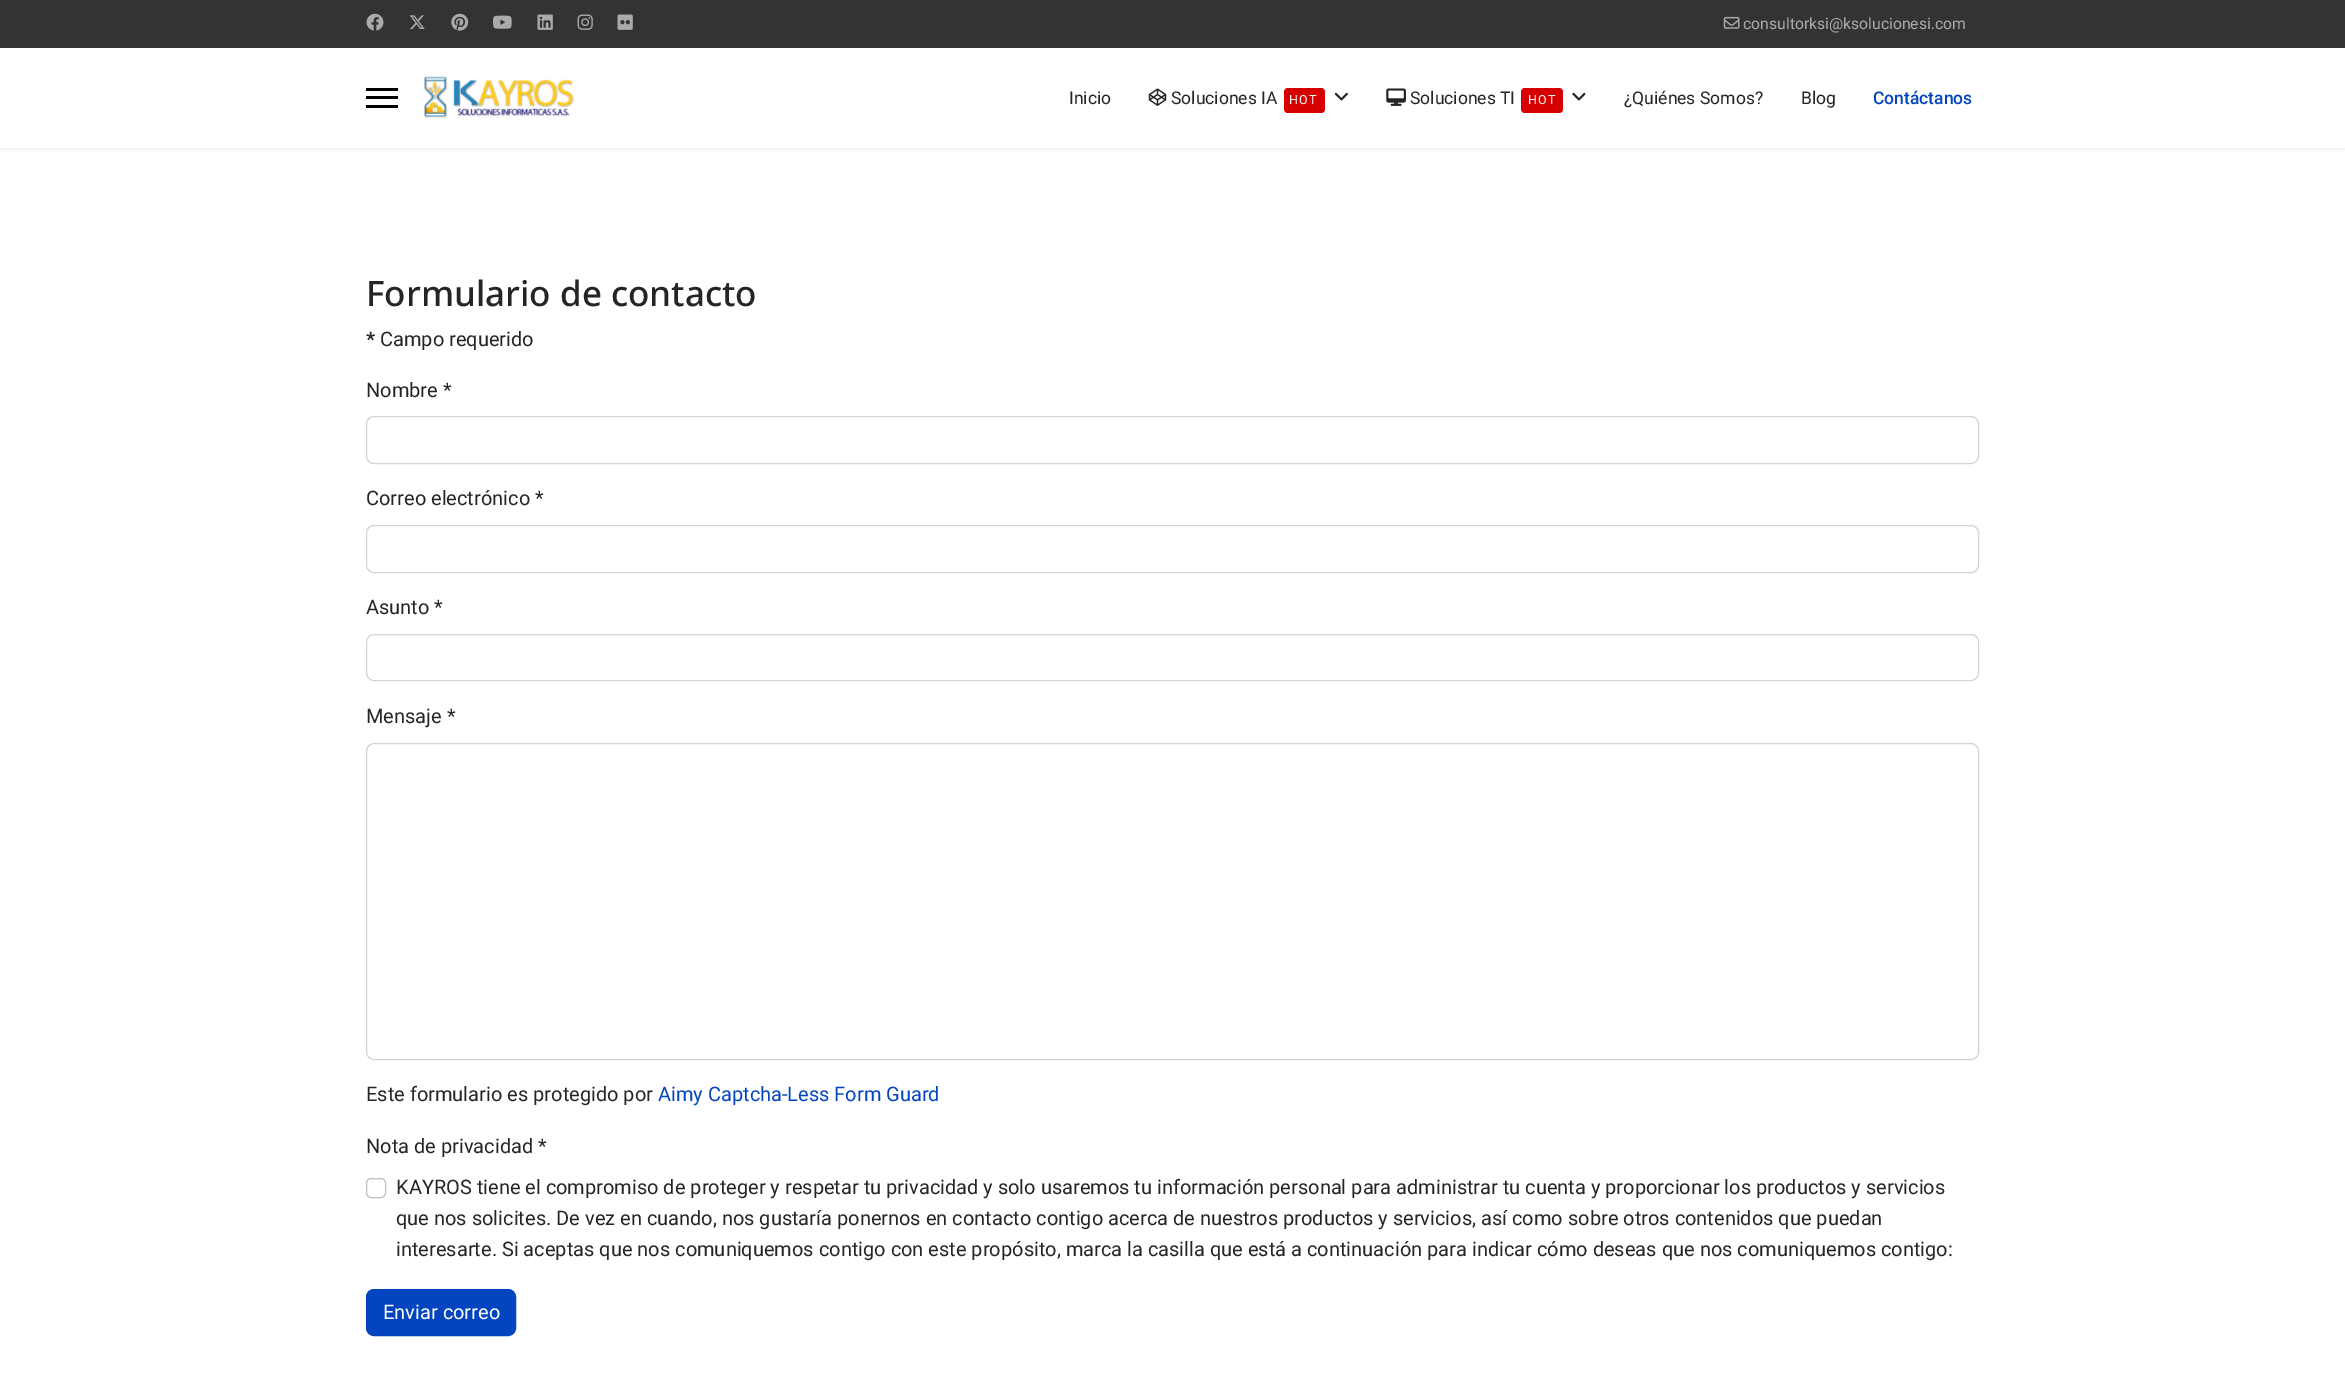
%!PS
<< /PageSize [2345 1374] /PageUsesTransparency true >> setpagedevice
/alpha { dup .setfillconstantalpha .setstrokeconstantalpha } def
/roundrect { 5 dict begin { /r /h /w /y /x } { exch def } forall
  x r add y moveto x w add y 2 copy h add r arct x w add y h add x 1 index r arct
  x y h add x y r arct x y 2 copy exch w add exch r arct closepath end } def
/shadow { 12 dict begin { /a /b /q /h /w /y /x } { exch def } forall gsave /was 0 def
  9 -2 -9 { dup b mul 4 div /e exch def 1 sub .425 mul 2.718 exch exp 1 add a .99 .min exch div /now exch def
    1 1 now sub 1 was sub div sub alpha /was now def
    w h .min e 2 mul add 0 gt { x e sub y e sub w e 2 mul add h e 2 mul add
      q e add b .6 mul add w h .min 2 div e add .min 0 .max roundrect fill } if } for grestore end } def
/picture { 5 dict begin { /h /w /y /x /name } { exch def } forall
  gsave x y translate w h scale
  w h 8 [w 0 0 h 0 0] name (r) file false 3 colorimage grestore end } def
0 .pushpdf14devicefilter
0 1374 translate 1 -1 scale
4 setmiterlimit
1 setgray
0 0 2345 1374 rectfill
0.2 setgray
0 0 2345 48 rectfill
(img1.rgb) 366 13 18 18 picture
(img2.rgb) 409 15 16 15 picture
(img3.rgb) 451 13 18 18 picture
(img4.rgb) 493 15 19 14 picture
(img5.rgb) 537 14 16 16 picture
(img6.rgb) 577 14 16 16 picture
(img7.rgb) 617 14 16 16 picture
(img8.rgb) 1723 16 17 13 picture
/Roboto-Regular [15.75 0 0 -15.75 0 0] selectfont
0.667 setgray
1743 29 moveto (consultorksi@ksolucionesi.com) show
0 setgray
0 48 2345 100 0 2.5 0.1 shadow
1 setgray
0 48 2345 100 rectfill
0 setgray
366 88 32 3 rectfill
366 96 32 3 rectfill
366 105 32 3 rectfill
(img9.rgb) 424 76 150 42 picture
/Roboto-Regular [17.5 0 0 -17.5 0 0] selectfont
0.145 setgray
1069 104 moveto (Inicio) show
(img10.rgb) 1148 88 19 18 picture
1171 104 moveto (Soluciones IA) show
0.839 0 0 setrgbcolor
1284 88 41 25 4 roundrect fill
/Roboto-Regular [12.5 0 0 -12.5 0 0] selectfont
1 setgray
1289 104 moveto 1 0 (HOT) ashow
(img11.rgb) 1334 92 14 9 picture
(img12.rgb) 1386 88 20 18 picture
/Roboto-Regular [17.5 0 0 -17.5 0 0] selectfont
0.145 setgray
1410 104 moveto (Soluciones TI) show
0.839 0 0 setrgbcolor
1521 88 42 25 4 roundrect fill
/Roboto-Regular [12.5 0 0 -12.5 0 0] selectfont
1 setgray
1528 104 moveto 1 0 (HOT) ashow
(img13.rgb) 1572 92 14 9 picture
/Roboto-Regular [17.5 0 0 -17.5 0 0] selectfont
0.145 setgray
1624 104 moveto (¿Quiénes Somos?) show
1801 104 moveto (Blog) show
/Roboto-Medium [17.5 0 0 -17.5 0 0] selectfont
0.012 0.271 0.749 setrgbcolor
1873 104 moveto (Contáctanos) show
/NotoSans-Medium [35 0 0 -35 0 0] selectfont
0.145 setgray
366 306 moveto (Formulario de contacto) show
/Roboto-Bold [20 0 0 -20 0 0] selectfont
366 346 moveto (*) show
/Roboto-Regular [20 0 0 -20 0 0] selectfont
380 346 moveto (Campo requerido) show
366 397 moveto (Nombre *) show
0.808 0.831 0.855 setrgbcolor
366.5 416.5 1612 47 7.5 roundrect stroke
0.145 setgray
366 505 moveto (Correo electrónico *) show
0.808 0.831 0.855 setrgbcolor
366.5 525.5 1612 47 7.5 roundrect stroke
0.145 setgray
366 614 moveto (Asunto *) show
0.808 0.831 0.855 setrgbcolor
366.5 634.5 1612 46 7.5 roundrect stroke
0.145 setgray
366 723 moveto (Mensaje *) show
0.808 0.831 0.855 setrgbcolor
366.5 743.5 1612 316 7.5 roundrect stroke
0.145 setgray
366 1101 moveto (Este formulario es protegido por) show
0.012 0.271 0.749 setrgbcolor
658 1101 moveto (Aimy Captcha-Less Form Guard) show
0.145 setgray
366 1153 moveto (Nota de privacidad *) show
0.749 setgray
366.5 1178.5 19 19 4.5 roundrect stroke
0.145 setgray
396 1194 moveto (KAYROS tiene el compromiso de proteger y respetar tu privacidad y solo usaremos tu información personal para administrar tu cuenta y proporcionar los productos y servicios) show
396 1225 moveto (que nos solicites. De vez en cuando, nos gustaría ponernos en contacto contigo acerca de nuestros productos y servicios, así como sobre otros contenidos que puedan) show
396 1256 moveto (interesarte. Si aceptas que nos comuniquemos contigo con este propósito, marca la casilla que está a continuación para indicar cómo deseas que nos comuniquemos contigo:) show
0.012 0.271 0.749 setrgbcolor
366.5 1289.5 149 46 7.5 roundrect gsave fill grestore
stroke
1 setgray
383 1319 moveto (Enviar correo) show
.poppdf14devicefilter showpage
